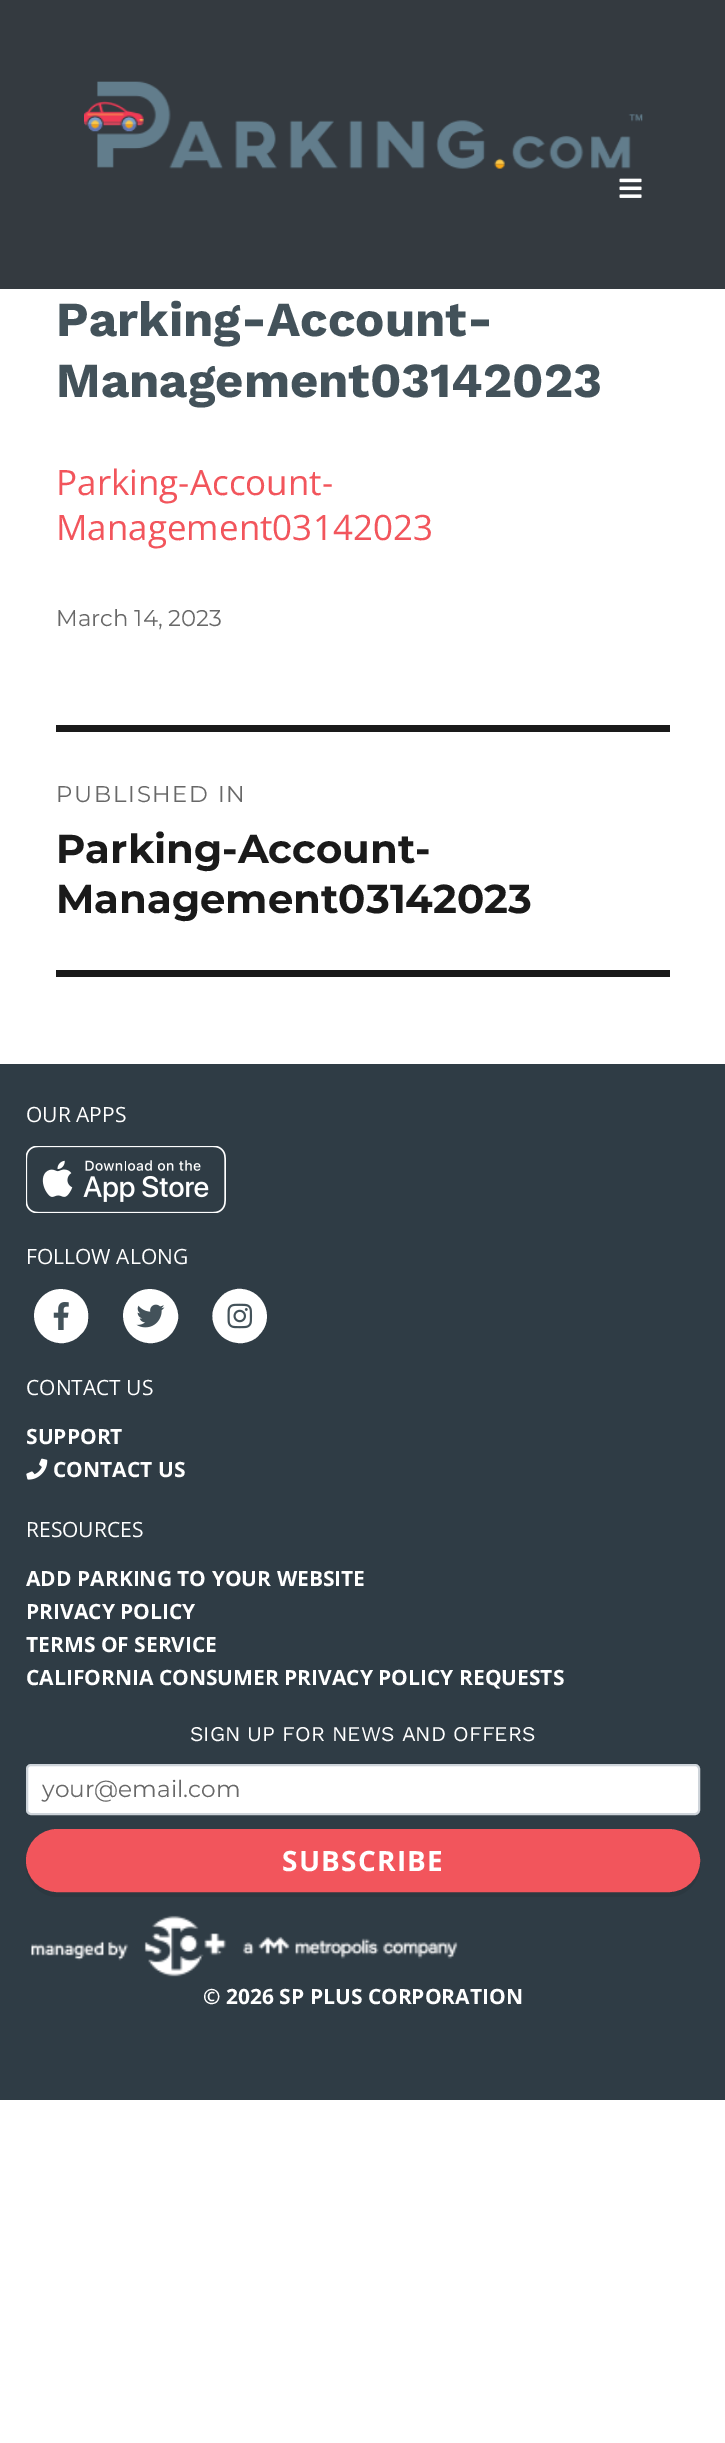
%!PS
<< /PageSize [725 2443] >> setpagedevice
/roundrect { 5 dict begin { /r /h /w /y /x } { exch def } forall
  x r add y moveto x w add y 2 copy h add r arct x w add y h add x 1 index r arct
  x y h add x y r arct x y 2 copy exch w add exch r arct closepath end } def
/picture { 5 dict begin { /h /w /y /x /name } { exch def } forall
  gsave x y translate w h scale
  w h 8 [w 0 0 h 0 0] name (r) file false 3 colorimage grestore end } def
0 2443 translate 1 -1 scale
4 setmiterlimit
1 setgray
0 0 725 2443 rectfill
0.204 0.227 0.251 setrgbcolor
0 0 725 289 rectfill
(img1.rgb) 84 81 559 88 picture
(img2.rgb) 619 178 23 20 picture
/WorkSans-Bold [49 0 0 -49 0 0] selectfont
0.263 0.322 0.353 setrgbcolor
56 336 moveto (Parking-Account-) show
56 397 moveto (Management03142023) show
/OpenSans-Regular [35 0 0 -35 0 0] selectfont
0.949 0.333 0.361 setrgbcolor
56 495 moveto (Parking-Account-) show
56 540 moveto (Management03142023) show
/Montserrat-Regular [22.75 0 0 -22.75 0 0] selectfont
0.408 setgray
56 626 moveto (March 14, 2023) show
0.102 setgray
56 725 614 7 rectfill
56 970 614 7 rectfill
0.408 setgray
56 802 moveto 1.75 0 (PUBLISHED IN) ashow
/Montserrat-Bold [40.25 0 0 -40.25 0 0] selectfont
0.102 setgray
56 863 moveto (Parking-Account-) show
56 913 moveto (Management03142023) show
0.184 0.235 0.271 setrgbcolor
0 1064 725 1036 rectfill
/OpenSans-Regular [21 0 0 -21 0 0] selectfont
1 setgray
26 1122 moveto (OUR APPS) show
(img3.rgb) 26 1146 200 67 picture
26 1264 moveto (FOLLOW ALONG) show
newpath 42 1297 moveto 60 1279 91 1294 88 1319 curveto 88 1325 85 1331 80 1335 curveto 76 1340 70 1342 64 1343 curveto 39 1345 24 1315 42 1297 curveto closepath fill
(img4.rgb) 53 1302 16 28 picture
newpath 131 1297 moveto 149 1279 180 1294 178 1319 curveto 177 1325 174 1331 170 1335 curveto 165 1340 160 1342 153 1343 curveto 128 1345 113 1315 131 1297 curveto closepath fill
(img5.rgb) 136 1304 29 24 picture
newpath 221 1297 moveto 225 1292 231 1290 237 1289 curveto 262 1287 277 1317 259 1335 curveto 255 1340 249 1342 243 1343 curveto 217 1345 202 1315 221 1297 curveto closepath fill
(img6.rgb) 227 1303 26 26 picture
26 1395 moveto (CONTACT US) show
/OpenSans-Bold [21 0 0 -21 0 0] selectfont
26 1444 moveto (SUPPORT) show
(img7.rgb) 26 1458 22 22 picture
53 1477 moveto (CONTACT US) show
/OpenSans-Regular [21 0 0 -21 0 0] selectfont
26 1537 moveto (RESOURCES) show
/OpenSans-Bold [21 0 0 -21 0 0] selectfont
26 1586 moveto (ADD PARKING TO YOUR WEBSITE) show
26 1619 moveto (PRIVACY POLICY) show
26 1652 moveto (TERMS OF SERVICE) show
26 1685 moveto (CALIFORNIA CONSUMER PRIVACY POLICY REQUESTS) show
/WorkSans-Regular [21 0 0 -21 0 0] selectfont
190 1741 moveto (SIGN UP FOR NEWS AND OFFERS) show
27 1765 672 49 4 roundrect gsave fill grestore
0.808 0.831 0.855 setrgbcolor
2 setlinewidth
stroke
/Montserrat-Regular [23.25 0 0 -23.25 0 0] selectfont
0.408 setgray
42 1797 moveto (your@email.com) show
0.173 0.22 0.251 setrgbcolor
newpath 26 1861 moveto 24 1880 39 1897 58 1897 curveto 668 1897 lineto 687 1897 701 1881 700 1863 curveto 699 1879 685 1892 668 1892 curveto 58 1892 lineto 41 1892 27 1878 26 1861 curveto closepath fill
0.949 0.333 0.361 setrgbcolor
27 1830 672 61 30.5 roundrect gsave fill grestore
stroke
/OpenSans-Bold [28 0 0 -28 0 0] selectfont
1 setgray
282 1871 moveto 1.25 0 (SUBSCRIBE) ashow
(img8.rgb) 31 1915 427 62 picture
/OpenSans-Bold [21 0 0 -21 0 0] selectfont
203 2004 moveto (© 2026 SP PLUS CORPORATION) show
showpage
